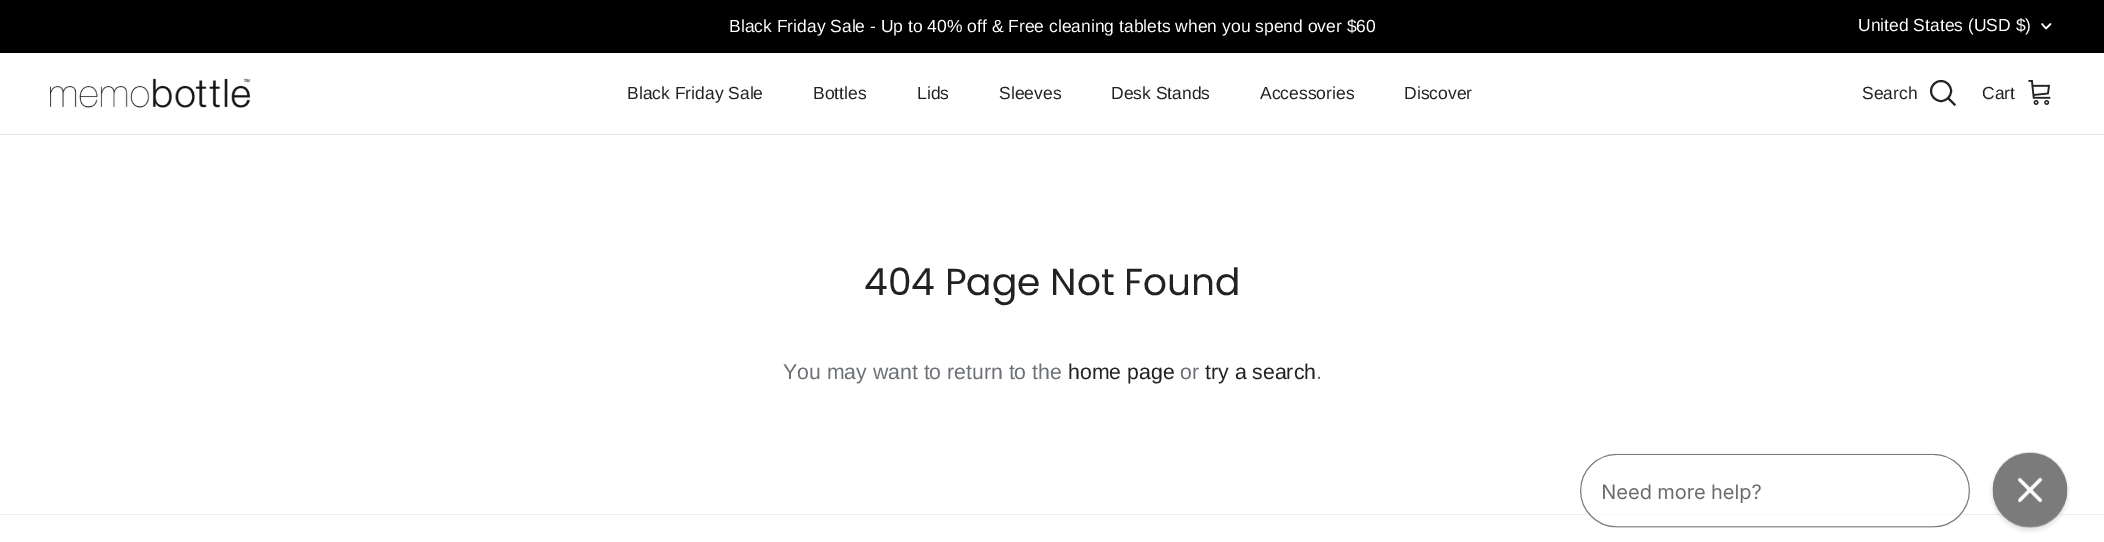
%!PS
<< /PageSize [2104 542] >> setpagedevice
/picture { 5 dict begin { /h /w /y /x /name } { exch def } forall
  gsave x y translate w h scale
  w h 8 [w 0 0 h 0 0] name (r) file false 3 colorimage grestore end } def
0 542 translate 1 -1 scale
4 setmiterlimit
1 setgray
0 0 2104 542 rectfill
0 setgray
0 0 2104 53 rectfill
/LiberationSans-Regular [17.5 0 0 -17.5 0 0] selectfont
1 setgray
729 32 moveto (Black Friday Sale - Up to 40% off & Free cleaning tablets when you spend over $60) show
1858 31 moveto (United States \(USD $\)) show
1.5 setlinewidth
1 setlinecap
1 setlinejoin
newpath 2042 24 moveto 2046 28.5 lineto 2050.5 24 lineto stroke
0.886 setgray
0 134 2104 1 rectfill
(img1.rgb) 50 78 200 30 picture
0.125 0.133 0.137 setrgbcolor
627 99 moveto (Black Friday Sale) show
813 99 moveto (Bottles) show
917 99 moveto (Lids) show
999 99 moveto (Sleeves) show
1111 99 moveto (Desk Stands) show
1260 99 moveto (Accessories) show
1404 99 moveto (Discover) show
1862 99 moveto (Search) show
1.9 setlinewidth
0 setlinecap
0 setlinejoin
newpath 1941 91 10 0 360 arc closepath stroke
2 setlinecap
newpath 1948.5 98.5 moveto 1954.5 104.5 lineto stroke
1982 99 moveto (Cart) show
(img2.rgb) 2028 80 23 25 picture
/Poppins-Regular [37.5 0 0 -37.5 0 0] selectfont
864 295 moveto (404 Page Not Found) show
/LiberationSans-Regular [21.25 0 0 -21.25 0 0] selectfont
0.427 0.443 0.459 setrgbcolor
783 379 moveto (You may want to return to the) show
0.125 0.133 0.137 setrgbcolor
1068 379 moveto (home page) show
0.427 0.443 0.459 setrgbcolor
1180 379 moveto (or) show
0.125 0.133 0.137 setrgbcolor
1205 379 moveto (try a search) show
0.427 0.443 0.459 setrgbcolor
1316 379 moveto (.) show
0.933 setgray
0 514 2104 1 rectfill
(img3.rgb) 1580 452 490 81 picture
showpage
